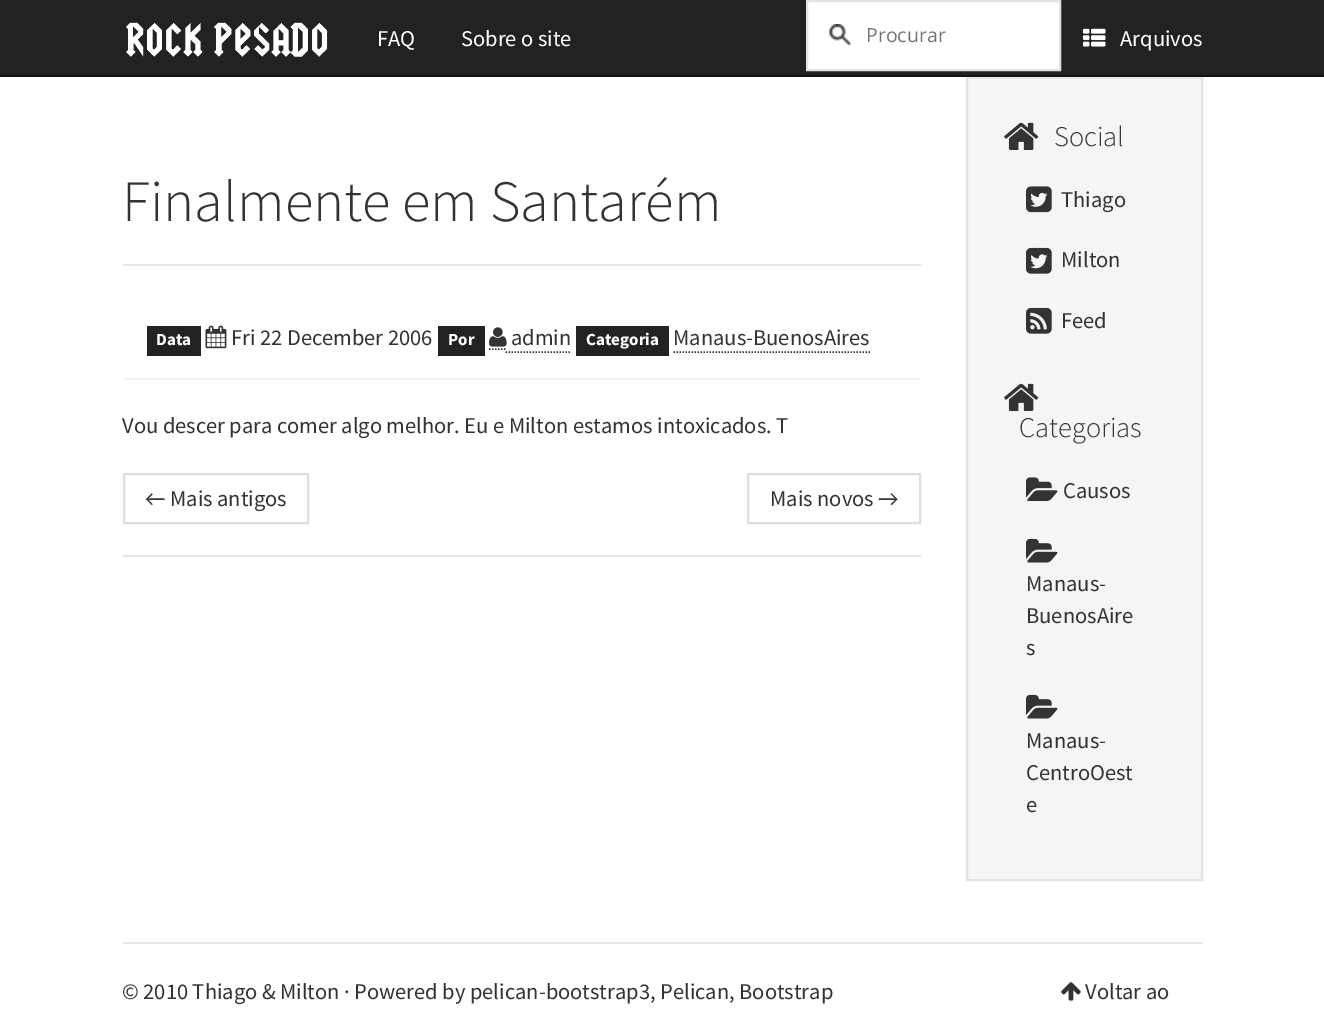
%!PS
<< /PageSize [1324 1027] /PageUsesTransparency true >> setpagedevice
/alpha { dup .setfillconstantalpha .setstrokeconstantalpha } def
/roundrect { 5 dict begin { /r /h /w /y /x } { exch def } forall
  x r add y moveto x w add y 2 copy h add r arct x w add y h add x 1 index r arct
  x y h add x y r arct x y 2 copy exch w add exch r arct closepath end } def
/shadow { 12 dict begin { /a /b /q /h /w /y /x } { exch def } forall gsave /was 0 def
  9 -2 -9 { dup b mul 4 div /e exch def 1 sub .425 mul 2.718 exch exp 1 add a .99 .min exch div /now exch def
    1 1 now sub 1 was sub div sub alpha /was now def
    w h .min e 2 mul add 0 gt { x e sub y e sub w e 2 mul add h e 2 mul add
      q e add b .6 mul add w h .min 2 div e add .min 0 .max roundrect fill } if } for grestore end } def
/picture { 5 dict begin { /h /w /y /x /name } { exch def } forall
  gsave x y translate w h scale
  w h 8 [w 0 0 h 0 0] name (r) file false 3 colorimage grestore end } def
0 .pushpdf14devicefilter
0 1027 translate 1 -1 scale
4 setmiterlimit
1 setgray
0 0 1324 1027 rectfill
0.133 setgray
0 0 1324 75 rectfill
0.961 setgray
968 79 233 800 rectfill
0.914 setgray
968 77 234 2 rectfill
0.89 setgray
2 setlinewidth
967 76 235 804 rectstroke
0.071 setgray
0 75 1324 2 rectfill
(img1.rgb) 126 22 202 35 picture
/SourceSansPro-Regular [22.5 0 0 -22.5 0 0] selectfont
1 setgray
377 46 moveto (FAQ) show
461 46 moveto (Sobre o site) show
808 2 251 67 rectfill
(img2.rgb) 829 24 22 21 picture
0.886 setgray
807 1 253 69 rectstroke
/OpenSans-Regular [19.5 0 0 -19.5 0 0] selectfont
0.459 setgray
866 42 moveto (Procurar) show
(img3.rgb) 1083 28 23 19 picture
/SourceSansPro-Regular [22.5 0 0 -22.5 0 0] selectfont
1 setgray
1120 46 moveto (Arquivos) show
0.902 setgray
123 264 798 2 rectfill
/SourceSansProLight-Light [58.5 0 0 -58.5 0 0] selectfont
0.2 setgray
122 221 moveto (Finalmente em Santarém) show
gsave
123 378 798 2 rectclip
0 setgray
123 299 798 81 0 1 0.05 shadow
grestore
0.133 setgray
147 326 54 30 rectfill
/SourceSansPro-Bold [17 0 0 -17 0 0] selectfont
1 setgray
156 345 moveto (Data) show
(img4.rgb) 205 325 22 24 picture
/SourceSansPro-Regular [22.5 0 0 -22.5 0 0] selectfont
0.2 setgray
231 345 moveto (Fri 22 December 2006) show
0.133 setgray
438 326 47 30 rectfill
/SourceSansPro-Bold [17 0 0 -17 0 0] selectfont
1 setgray
448 345 moveto (Por) show
0.2 setgray
1.5 setlinewidth
[1.5 1.5] 0 setdash
newpath 489 349 moveto 505.5 349 lineto stroke
newpath 505.5 352 moveto 571.5 352 lineto stroke
(img5.rgb) 489 327 18 20 picture
/SourceSansPro-Regular [22.5 0 0 -22.5 0 0] selectfont
511 345 moveto (admin) show
0.133 setgray
576 326 93 30 rectfill
/SourceSansPro-Bold [17 0 0 -17 0 0] selectfont
1 setgray
586 345 moveto (Categoria) show
/SourceSansPro-Regular [22.5 0 0 -22.5 0 0] selectfont
0.2 setgray
673 345 moveto (Manaus-BuenosAires) show
newpath 673.5 352 moveto 870 352 lineto stroke
122 433 moveto (Vou descer para comer algo melhor. Eu e Milton estamos intoxicados. T) show
0.867 setgray
2 setlinewidth
[] 0 setdash
124 474 184 49 rectstroke
/Carlito-Regular [22.5 0 0 -22.5 0 0] selectfont
0.2 setgray
145 506 moveto (←) show
/SourceSansPro-Regular [22.5 0 0 -22.5 0 0] selectfont
170 506 moveto (Mais antigos) show
0.867 setgray
748 474 172 49 rectstroke
0.2 setgray
770 506 moveto (Mais novos) show
/Carlito-Regular [22.5 0 0 -22.5 0 0] selectfont
878 506 moveto (→) show
0.902 setgray
123 555 798 2 rectfill
(img6.rgb) 1004 122 35 28 picture
/SourceSansProLight-Light [28.5 0 0 -28.5 0 0] selectfont
0.2 setgray
1054 146 moveto (Social) show
(img7.rgb) 1026 186 26 27 picture
/SourceSansPro-Regular [22.5 0 0 -22.5 0 0] selectfont
1061 207 moveto (Thiago) show
(img8.rgb) 1026 247 26 27 picture
1061 267 moveto (Milton) show
(img9.rgb) 1026 307 26 27 picture
1061 328 moveto (Feed) show
(img6.rgb) 1004 383 35 28 picture
/SourceSansProLight-Light [28.5 0 0 -28.5 0 0] selectfont
1019 437 moveto (Categorias) show
(img10.rgb) 1026 477 32 24 picture
/SourceSansPro-Regular [22.5 0 0 -22.5 0 0] selectfont
1063 498 moveto (Causos) show
(img11.rgb) 1026 538 32 25 picture
1026 591 moveto (Manaus-) show
1026 623 moveto (BuenosAire) show
1026 655 moveto (s) show
(img11.rgb) 1026 694 32 25 picture
1026 748 moveto (Manaus-) show
1026 780 moveto (CentroOest) show
1026 812 moveto (e) show
0.902 setgray
123 942 1080 2 rectfill
0.2 setgray
122 999 moveto (© 2010 Thiago & Milton · Powered by pelican-bootstrap3, Pelican, Bootstrap) show
(img12.rgb) 1061 982 20 19 picture
1085 999 moveto (Voltar ao) show
.poppdf14devicefilter showpage
